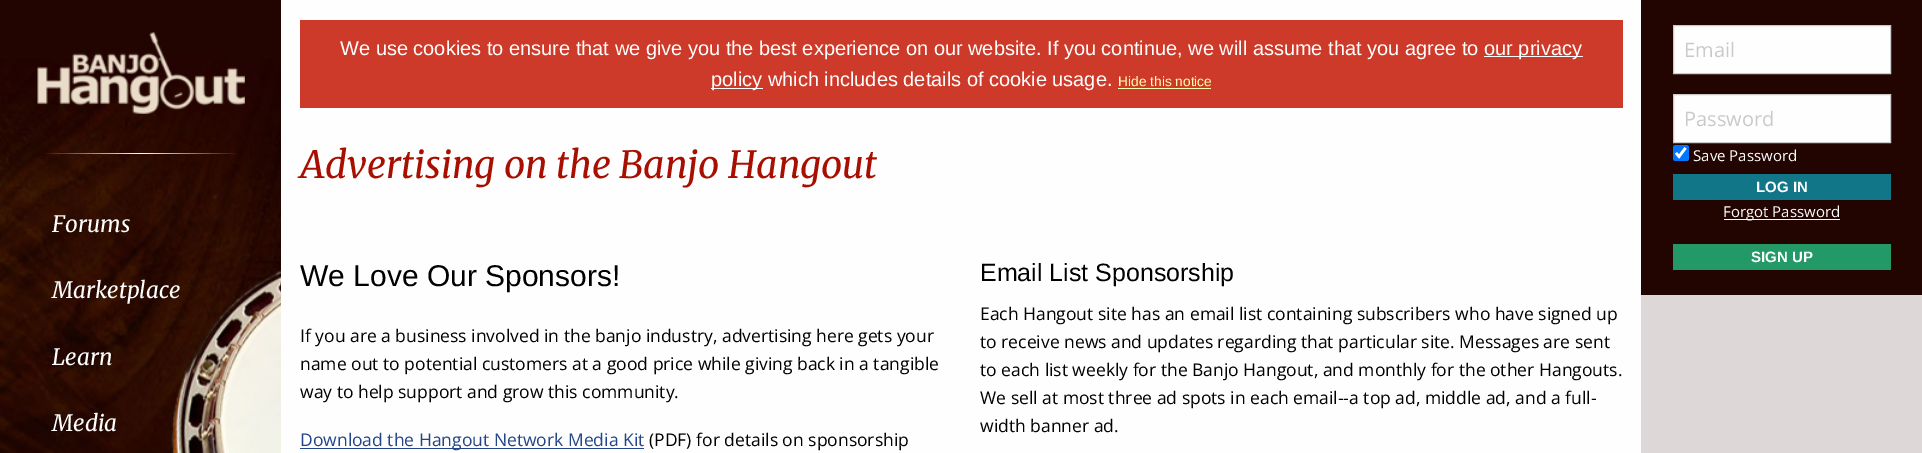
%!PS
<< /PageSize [1922 453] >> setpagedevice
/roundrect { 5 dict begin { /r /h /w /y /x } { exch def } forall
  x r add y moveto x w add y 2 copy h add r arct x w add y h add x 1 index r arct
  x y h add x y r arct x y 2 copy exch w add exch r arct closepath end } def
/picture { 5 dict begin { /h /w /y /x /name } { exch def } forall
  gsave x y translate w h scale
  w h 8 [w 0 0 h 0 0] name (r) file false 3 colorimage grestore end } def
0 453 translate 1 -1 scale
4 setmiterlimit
0.996 setgray
0 0 1922 453 rectfill
0.808 0.227 0.161 setrgbcolor
300 20 1323 88 rectfill
/LiberationSans-Regular [20 0 0 -20 0 0] selectfont
1 setgray
340 55 moveto (We use cookies to ensure that we give you the best experience on our website. If you continue, we will assume that you agree to) show
1484 56 99 1 rectfill
1484 55 moveto (our privacy) show
711 88 52 1 rectfill
711 86 moveto (policy which includes details of cookie usage.) show
/LiberationSans-Regular [13.75 0 0 -13.75 0 0] selectfont
1 1 0.667 setrgbcolor
1118 86 moveto (Hide this notice) show
1118 88 93 1 rectfill
/Merriweather-Italic [37.5 0 0 -37.5 0 0] selectfont
0.659 0.059 0 setrgbcolor
300 178 moveto (Advertising on the Banjo Hangout) show
/LiberationSans-Regular [30 0 0 -30 0 0] selectfont
0 setgray
300 286 moveto (We Love Our Sponsors!) show
/OpenSans-Regular [17.5 0 0 -17.5 0 0] selectfont
300 342 moveto (If you are a business involved in the banjo industry, advertising here gets your) show
300 370 moveto (name out to potential customers at a good price while giving back in a tangible) show
300 398 moveto (way to help support and grow this community.) show
0.133 0.267 0.533 setrgbcolor
300 448 344 1 rectfill
300 446 moveto (Download the Hangout Network Media Kit) show
0 setgray
649 446 moveto (\(PDF\) for details on sponsorship) show
/LiberationSans-Regular [25 0 0 -25 0 0] selectfont
980 281 moveto (Email List Sponsorship) show
/OpenSans-Regular [17.5 0 0 -17.5 0 0] selectfont
980 320 moveto (Each Hangout site has an email list containing subscribers who have signed up) show
980 348 moveto (to receive news and updates regarding that particular site. Messages are sent) show
980 376 moveto (to each list weekly for the Banjo Hangout, and monthly for the other Hangouts.) show
980 404 moveto (We sell at most three ad spots in each email--a top ad, middle ad, and a full-) show
980 432 moveto (width banner ad.) show
0.867 0.843 0.843 setrgbcolor
1641 295 281 158 rectfill
0.133 0.016 0.004 setrgbcolor
1641 0 281 295 rectfill
0.996 setgray
newpath 1673.5 25.5 moveto 1890.5 25.5 lineto 1890.5 73.5 lineto 1673.5 73.5 lineto closepath gsave fill grestore
0.792 setgray
stroke
/OpenSans-Regular [20 0 0 -20 0 0] selectfont
1684 57 moveto (Email) show
0.996 setgray
newpath 1673.5 94.5 moveto 1890.5 94.5 lineto 1890.5 142.5 lineto 1673.5 142.5 lineto closepath gsave fill grestore
0.792 setgray
stroke
1684 126 moveto (Password) show
0 0.459 1 setrgbcolor
1673 145 16 16 2.5 roundrect fill
1 setgray
2.6 setlinewidth
newpath 1676 153 moveto 1679 156.5 lineto 1685.5 148 lineto stroke
/OpenSans-Regular [15 0 0 -15 0 0] selectfont
1693 161 moveto (Save Password) show
0.067 0.467 0.533 setrgbcolor
1673 174 218 26 rectfill
/LiberationSans-Bold [15 0 0 -15 0 0] selectfont
1 setgray
1756 192 moveto (LOG IN) show
0.996 setgray
1724 219 116 1 rectfill
/OpenSans-Regular [15 0 0 -15 0 0] selectfont
1 setgray
1723 217 moveto (Forgot Password) show
0.133 0.6 0.4 setrgbcolor
1673 244 218 26 rectfill
/LiberationSans-Bold [15 0 0 -15 0 0] selectfont
1 setgray
1751 262 moveto (SIGN UP) show
0.133 0.016 0.004 setrgbcolor
0 0 281 59 rectfill
(img1.rgb) 0 59 281 394 picture
(img2.rgb) 37 32 208 82 picture
/Merriweather-Italic [22.5 0 0 -22.5 0 0] selectfont
1 setgray
52 232 moveto (Forums) show
52 298 moveto (Marketplace) show
52 365 moveto (Learn) show
52 431 moveto (Media) show
showpage
